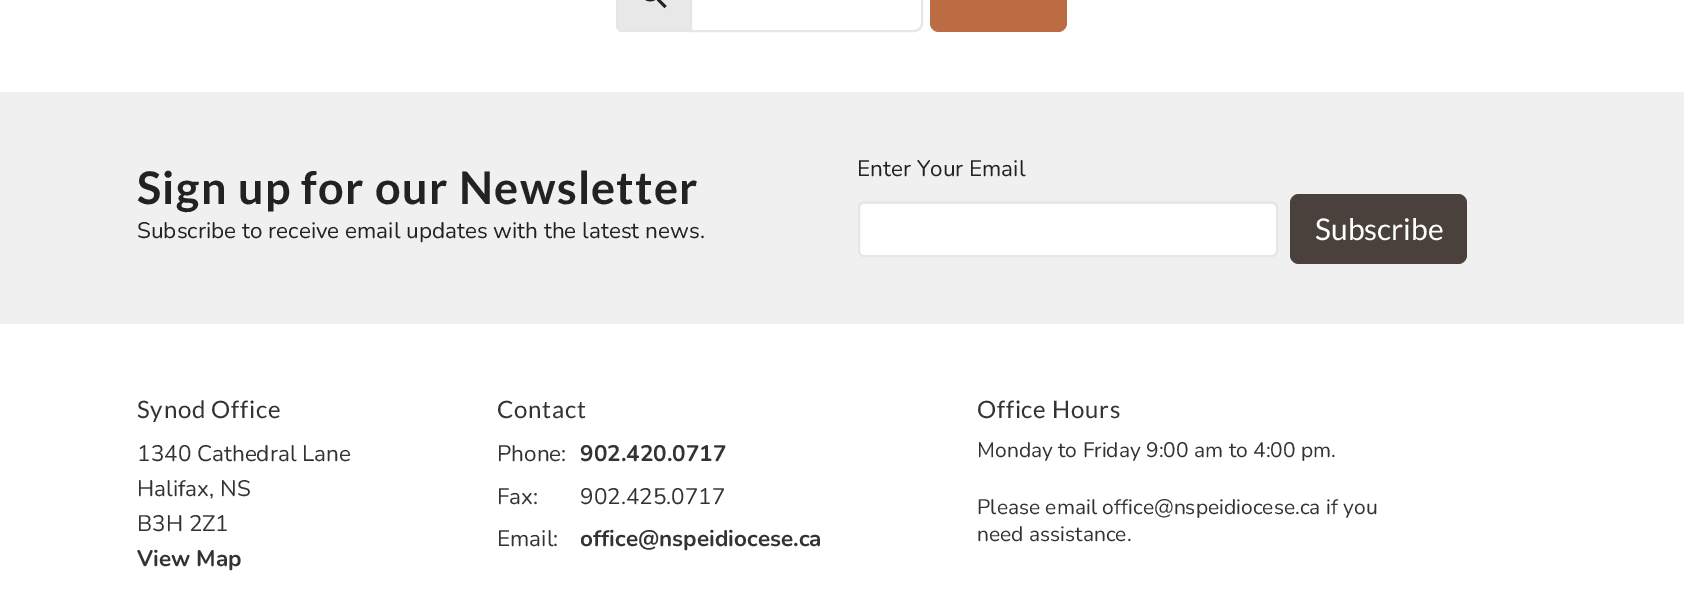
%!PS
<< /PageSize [1684 591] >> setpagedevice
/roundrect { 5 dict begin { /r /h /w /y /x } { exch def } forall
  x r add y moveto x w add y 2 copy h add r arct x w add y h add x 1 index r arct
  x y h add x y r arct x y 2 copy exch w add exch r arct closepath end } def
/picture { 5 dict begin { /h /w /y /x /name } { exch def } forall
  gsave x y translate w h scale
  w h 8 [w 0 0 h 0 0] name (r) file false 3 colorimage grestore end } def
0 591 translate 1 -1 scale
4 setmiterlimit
1 setgray
0 0 1684 591 rectfill
0.91 setgray
newpath 623 -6 moveto 690 -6 lineto 690 32 lineto 623 32 lineto 619.5 32 617 29.5 617 26 curveto 617 0 lineto 617 -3.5 619.5 -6 623 -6 curveto closepath fill
0.902 setgray
newpath 622 -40 moveto 690 -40 lineto 690 32 lineto 622 32 lineto 619 32 616 29 616 26 curveto 616 -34 lineto 616 -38 619 -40 622 -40 curveto closepath 622 -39 moveto 690 -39 lineto 690 30 lineto 622 30 lineto 620 30 618 28 618 26 curveto 618 -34 lineto 618 -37 620 -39 622 -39 curveto closepath eofill
(img1.rgb) 645 0 22 9 picture
2 setlinewidth
newpath 691 -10 moveto 914 -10 lineto 918.5 -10 922 -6.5 922 -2 curveto 922 23 lineto 922 27.5 918.5 31 914 31 curveto 691 31 lineto closepath stroke
0.733 0.424 0.263 setrgbcolor
930 -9 137 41 9 roundrect fill
0.941 setgray
0 92 1684 232 rectfill
/Lato-Bold [45 0 0 -45 0 0] selectfont
0.133 setgray
137 204 moveto 1.35 0 (Sign up for our Newsletter) ashow
/Nunito-Regular [22.5 0 0 -22.5 0 0] selectfont
137 238 moveto (Subscribe to receive email updates with the latest news.) show
857 176 moveto (Enter Your Email) show
1 setgray
858 201 420 56 6 roundrect fill
0.925 setgray
newpath 864 204 moveto 1272 204 lineto 1274 204 1276 206 1276 208 curveto 1276 253 lineto 1277 252 1277 251 1277 250 curveto 1277 208 lineto 1277 205 1275 203 1272 203 curveto 865 203 lineto 862 203 860 205 860 208 curveto 860 206 862 204 864 204 curveto closepath fill
0.902 setgray
859 202 418 54 5 roundrect stroke
0.29 0.255 0.235 setrgbcolor
1290 194 177 70 9 roundrect fill
/Lato-Regular [30 0 0 -30 0 0] selectfont
1 setgray
1315 240 moveto (Subscribe) show
/Lato-Regular [24 0 0 -24 0 0] selectfont
0.2 setgray
137 418 moveto 0.75 0 (Synod Office) ashow
/Nunito-Regular [22.5 0 0 -22.5 0 0] selectfont
137 461 moveto (1340 Cathedral Lane) show
137 496 moveto (Halifax, NS) show
137 531 moveto (B3H 2Z1) show
/Nunito-Bold [22.5 0 0 -22.5 0 0] selectfont
137 566 moveto (View Map) show
/Lato-Regular [24 0 0 -24 0 0] selectfont
497 418 moveto 0.75 0 (Contact) ashow
/Nunito-Regular [22.5 0 0 -22.5 0 0] selectfont
497 461 moveto (Phone:) show
/Nunito-Bold [22.5 0 0 -22.5 0 0] selectfont
580 461 moveto (902.420.0717) show
/Nunito-Regular [22.5 0 0 -22.5 0 0] selectfont
497 504 moveto (Fax:) show
580 504 moveto (902.425.0717) show
497 546 moveto (Email:) show
gsave
581 522 241 35 rectclip
/Nunito-Bold [22.5 0 0 -22.5 0 0] selectfont
580 546 moveto (office@nspeidiocese.ca) show
grestore
/Lato-Regular [24 0 0 -24 0 0] selectfont
977 418 moveto 0.75 0 (Office Hours) ashow
/Nunito-Regular [21 0 0 -21 0 0] selectfont
977 457 moveto (Monday to Friday 9:00 am to 4:00 pm.) show
977 514 moveto (Please email office@nspeidiocese.ca if you) show
977 541 moveto (need assistance.) show
showpage
